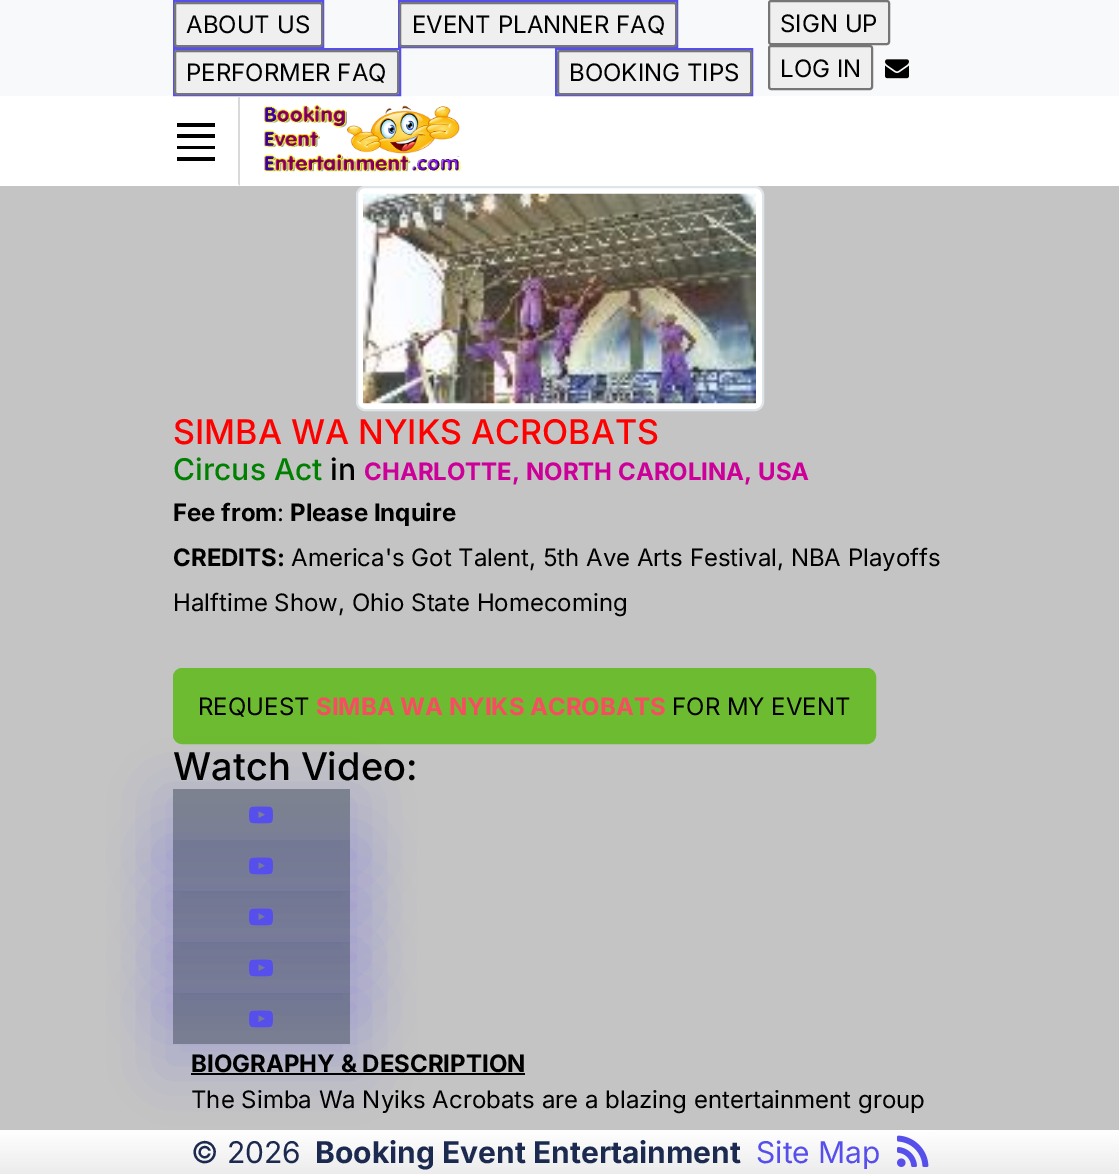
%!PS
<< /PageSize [1119 1174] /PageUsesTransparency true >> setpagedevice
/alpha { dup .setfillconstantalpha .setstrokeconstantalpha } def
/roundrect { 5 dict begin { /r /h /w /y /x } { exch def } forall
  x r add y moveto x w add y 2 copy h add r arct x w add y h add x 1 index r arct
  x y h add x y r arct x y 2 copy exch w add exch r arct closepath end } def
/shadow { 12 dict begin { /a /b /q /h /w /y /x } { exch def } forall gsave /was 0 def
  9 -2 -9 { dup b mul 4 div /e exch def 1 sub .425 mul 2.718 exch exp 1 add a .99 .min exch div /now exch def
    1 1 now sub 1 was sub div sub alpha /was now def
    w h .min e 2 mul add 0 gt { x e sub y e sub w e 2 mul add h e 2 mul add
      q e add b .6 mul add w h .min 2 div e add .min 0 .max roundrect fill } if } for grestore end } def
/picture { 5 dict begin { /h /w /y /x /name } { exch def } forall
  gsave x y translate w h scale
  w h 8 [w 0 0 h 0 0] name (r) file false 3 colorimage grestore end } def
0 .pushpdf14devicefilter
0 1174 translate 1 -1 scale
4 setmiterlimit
0.769 setgray
0 0 1119 1174 rectfill
1 setgray
0 96 1119 90 rectfill
0.973 0.976 0.98 setrgbcolor
0 0 1119 96 rectfill
0.341 0.31 0.925 setrgbcolor
2 setlinewidth
174 1 149 46 rectstroke
0.937 setgray
175 3 147 43 2 roundrect gsave fill grestore
0.463 setgray
stroke
/Inter-Regular [24 0 0 -24 0 0] selectfont
0 setgray
186 33 moveto (ABOUT US) show
0.341 0.31 0.925 setrgbcolor
399 1 278 46 rectstroke
0.937 setgray
400 3 276 43 2 roundrect gsave fill grestore
0.463 setgray
stroke
0 setgray
412 33 moveto (EVENT PLANNER FAQ) show
0.945 0.941 0.992 setrgbcolor
newpath 174 49 moveto 400 49 lineto 400 95 lineto 174 95 lineto closepath gsave fill grestore
0.341 0.31 0.925 setrgbcolor
stroke
0.937 setgray
175 51 223 43 2 roundrect gsave fill grestore
0.463 setgray
stroke
0 setgray
186 81 moveto (PERFORMER FAQ) show
0.945 0.941 0.992 setrgbcolor
newpath 556 49 moveto 752 49 lineto 752 95 lineto 556 95 lineto closepath gsave fill grestore
0.341 0.31 0.925 setrgbcolor
stroke
0.937 setgray
558 51 193 43 2 roundrect gsave fill grestore
0.463 setgray
stroke
0 setgray
569 81 moveto (BOOKING TIPS) show
0.937 setgray
769 1 120 43 2 roundrect gsave fill grestore
0.463 setgray
stroke
0 setgray
780 32 moveto (SIGN UP) show
0.937 setgray
769 46 103 43 2 roundrect gsave fill grestore
0.463 setgray
stroke
0 setgray
780 77 moveto (LOG IN) show
(img1.rgb) 885 59 24 20 picture
0.851 setgray
newpath 240 96 moveto 240 186 lineto 238 184 lineto 238 98 lineto closepath fill
0 setgray
177 123 38 4 rectfill
177 134 38 4 rectfill
177 146 38 3 rectfill
177 157 38 4 rectfill
(img2.rgb) 264 105 197 67 picture
1 setgray
357 187 406 223 8 roundrect gsave fill grestore
0.867 0.894 0.918 setrgbcolor
stroke
(img3.rgb) 363 193 393 211 picture
/Inter-Medium [34 0 0 -34 0 0] selectfont
1 0 0 setrgbcolor
173 444 moveto (SIMBA WA NYIKS ACROBATS) show
/Inter-Medium [30 0 0 -30 0 0] selectfont
0 0.502 0 setrgbcolor
173 480 moveto (Circus Act) show
0 setgray
330 480 moveto (in) show
/Inter-Bold [24 0 0 -24 0 0] selectfont
0.8 0 0.6 setrgbcolor
364 480 moveto (CHARLOTTE, NORTH CAROLINA, USA) show
0 setgray
173 521 moveto (Fee from) show
/Inter-Regular [24 0 0 -24 0 0] selectfont
277 521 moveto (:) show
/Inter-Bold [24 0 0 -24 0 0] selectfont
290 521 moveto (Please Inquire) show
173 566 moveto (CREDITS:) show
/Inter-Regular [24 0 0 -24 0 0] selectfont
291 566 moveto (America's Got Talent, 5th Ave Arts Festival, NBA Playoffs) show
173 611 moveto (Halftime Show, Ohio State Homecoming) show
0.427 0.733 0.188 setrgbcolor
174 669 701 74 8 roundrect gsave fill grestore
stroke
0 setgray
198 715 moveto (REQUEST) show
/Inter-Bold [24 0 0 -24 0 0] selectfont
0.965 0.306 0.376 setrgbcolor
316 715 moveto (SIMBA WA NYIKS ACROBATS) show
/Inter-Regular [24 0 0 -24 0 0] selectfont
0 setgray
672 715 moveto (FOR MY EVENT) show
gsave
newpath 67 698 moveto 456 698 lineto 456 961 lineto 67 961 lineto closepath 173 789 moveto 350 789 lineto 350 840 lineto 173 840 lineto closepath eoclip newpath
0.341 0.31 0.925 setrgbcolor
158 789 207 81 0 30 0.18 shadow
grestore
0.4 alpha
0.075 0.122 0.263 setrgbcolor
173 789 177 51 rectfill
gsave
newpath 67 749 moveto 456 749 lineto 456 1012 lineto 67 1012 lineto closepath 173 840 moveto 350 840 lineto 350 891 lineto 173 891 lineto closepath eoclip newpath
1 alpha
0.341 0.31 0.925 setrgbcolor
158 840 207 81 0 30 0.18 shadow
grestore
173 840 177 51 rectfill
gsave
newpath 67 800 moveto 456 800 lineto 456 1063 lineto 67 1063 lineto closepath 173 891 moveto 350 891 lineto 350 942 lineto 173 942 lineto closepath eoclip newpath
1 alpha
0.341 0.31 0.925 setrgbcolor
158 891 207 81 0 30 0.18 shadow
grestore
1 alpha
(img4.rgb) 249 806 24 18 picture
0.4 alpha
173 891 177 51 rectfill
gsave
newpath 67 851 moveto 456 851 lineto 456 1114 lineto 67 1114 lineto closepath 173 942 moveto 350 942 lineto 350 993 lineto 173 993 lineto closepath eoclip newpath
1 alpha
0.341 0.31 0.925 setrgbcolor
158 942 207 81 0 30 0.18 shadow
grestore
1 alpha
(img5.rgb) 249 857 24 18 picture
/Inter-Medium [38 0 0 -38 0 0] selectfont
0 setgray
173 780 moveto (Watch Video:) show
0.4 alpha
0.075 0.122 0.263 setrgbcolor
173 942 177 51 rectfill
gsave
newpath 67 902 moveto 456 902 lineto 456 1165 lineto 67 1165 lineto closepath 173 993 moveto 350 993 lineto 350 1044 lineto 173 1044 lineto closepath eoclip newpath
1 alpha
0.341 0.31 0.925 setrgbcolor
158 993 207 81 0 30 0.18 shadow
grestore
1 alpha
(img6.rgb) 249 908 24 18 picture
(img7.rgb) 249 959 24 18 picture
0.4 alpha
173 993 177 51 rectfill
1 alpha
(img8.rgb) 249 1010 24 18 picture
/Inter-Bold [24 0 0 -24 0 0] selectfont
0 setgray
191 1072 moveto (BIOGRAPHY & DESCRIPTION) show
191 1073 334 2 rectfill
/Inter-Regular [24 0 0 -24 0 0] selectfont
191 1108 moveto (The Simba Wa Nyiks Acrobats are a blazing entertainment group) show
gsave newpath 0 1130 moveto 1119 1130 lineto 1119 1174 lineto 0 1174 lineto closepath clip newpath
<< /ShadingType 2 /ColorSpace /DeviceRGB /Coords [560 1130 560 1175] /Extend [true true] /Function << /FunctionType 2 /Domain [0 1] /C0 [1 1 1] /C1 [0.922 0.922 0.922] /N 1 >> >> shfill grestore
/Inter-Regular [30 0 0 -30 0 0] selectfont
0.106 0.165 0.306 setrgbcolor
191 1163 moveto (© 2026) show
/Inter-Bold [30 0 0 -30 0 0] selectfont
315 1163 moveto (Booking Event Entertainment) show
/Inter-Regular [30 0 0 -30 0 0] selectfont
0.341 0.31 0.925 setrgbcolor
756 1163 moveto (Site Map) show
(img9.rgb) 897 1135 32 32 picture
.poppdf14devicefilter showpage
